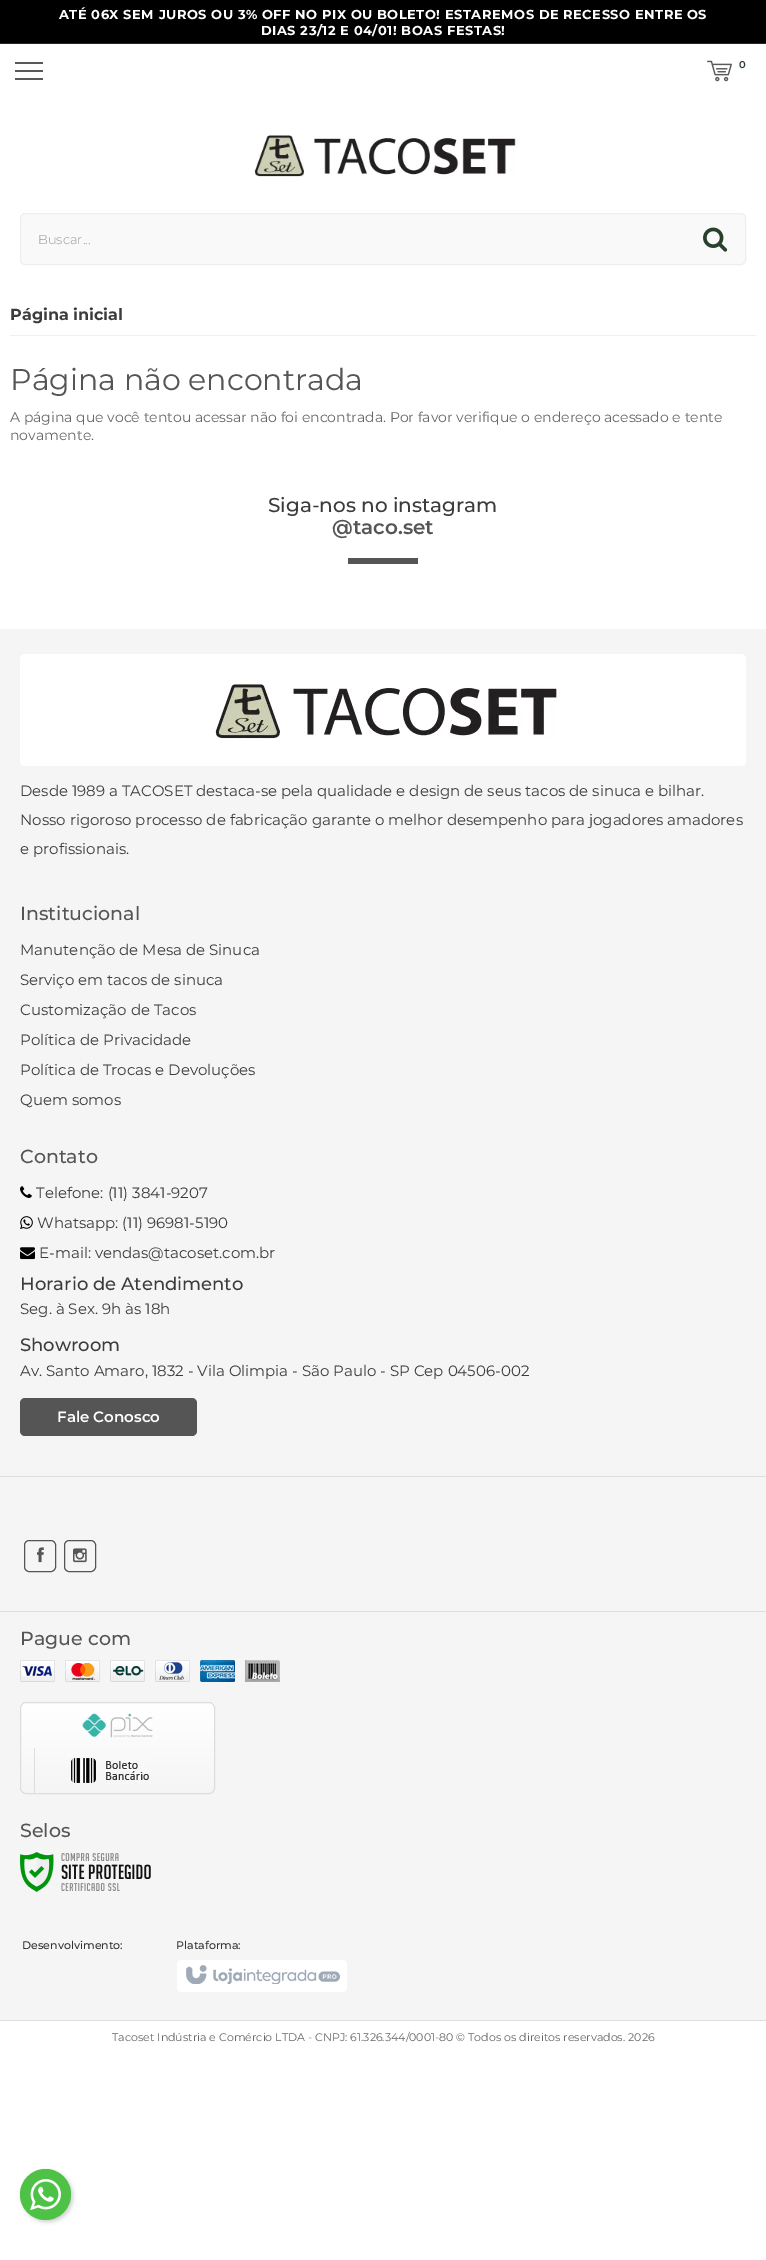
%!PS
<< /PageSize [766 2260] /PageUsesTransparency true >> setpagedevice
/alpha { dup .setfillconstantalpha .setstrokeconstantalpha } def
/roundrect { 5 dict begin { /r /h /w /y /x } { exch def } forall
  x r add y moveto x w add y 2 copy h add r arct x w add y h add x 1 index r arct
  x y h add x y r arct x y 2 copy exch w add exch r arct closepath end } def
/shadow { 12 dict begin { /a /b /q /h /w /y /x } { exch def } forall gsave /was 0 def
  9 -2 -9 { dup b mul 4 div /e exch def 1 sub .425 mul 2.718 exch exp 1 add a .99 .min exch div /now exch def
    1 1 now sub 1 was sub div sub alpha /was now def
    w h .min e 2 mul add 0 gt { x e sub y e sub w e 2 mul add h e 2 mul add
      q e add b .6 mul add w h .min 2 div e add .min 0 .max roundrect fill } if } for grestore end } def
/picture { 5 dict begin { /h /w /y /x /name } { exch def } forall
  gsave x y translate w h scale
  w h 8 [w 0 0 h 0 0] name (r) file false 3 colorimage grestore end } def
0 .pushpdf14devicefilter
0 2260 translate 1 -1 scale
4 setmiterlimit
1 setgray
0 0 766 2260 rectfill
0 setgray
0 0 766 43 rectfill
0.149 setgray
0 43 766 1 rectfill
/Montserrat-Bold [13 0 0 -13 0 0] selectfont
1 setgray
59 19 moveto 0.5 0 (ATÉ 06X SEM JUROS OU 3% OFF NO PIX OU BOLETO! ESTAREMOS DE RECESSO ENTRE OS) ashow
261 35 moveto 0.5 0 (DIAS 23/12 E 04/01! BOAS FESTAS!) ashow
(img1.rgb) 254 135 264 42 picture
0.976 setgray
20.5 213.5 725 51 4.5 roundrect gsave fill grestore
0.933 setgray
stroke
/Montserrat-Light [13 0 0 -13 0 0] selectfont
0.588 setgray
38 244 moveto (Buscar...) show
(img2.rgb) 703 227 25 25 picture
0.937 setgray
10 335 746 1 rectfill
/Montserrat-Bold [16 0 0 -16 0 0] selectfont
0.243 0.231 0.231 setrgbcolor
10 320 moveto (Página inicial) show
/Montserrat-Regular [30 0 0 -30 0 0] selectfont
0.333 setgray
10 390 moveto (Página não encontrada) show
/Montserrat-Regular [14 0 0 -14 0 0] selectfont
0.4 setgray
10 422 moveto (A página que você tentou acessar não foi encontrada. Por favor verifique o endereço acessado e tente) show
10 440 moveto (novamente.) show
/Montserrat-Medium [20 0 0 -20 0 0] selectfont
0.243 0.231 0.231 setrgbcolor
268 512 moveto (Siga-nos no instagram) show
/Montserrat-SemiBold [20 0 0 -20 0 0] selectfont
0.333 setgray
332 534 moveto (@taco.set) show
348 558 70 6 rectfill
0.961 setgray
0 629 766 1391 rectfill
1 setgray
20 654 726 112 5 roundrect fill
(img3.rgb) 214 684 346 56 picture
/Montserrat-Regular [15 0 0 -15 0 0] selectfont
0.243 0.231 0.231 setrgbcolor
20 796 moveto (Desde 1989 a TACOSET destaca-se pela qualidade e design de seus tacos de sinuca e bilhar.) show
20 825 moveto (Nosso rigoroso processo de fabricação garante o melhor desempenho para jogadores amadores) show
20 854 moveto (e profissionais.) show
/Montserrat-Medium [19 0 0 -19 0 0] selectfont
0.333 setgray
20 920 moveto (Institucional) show
/Montserrat-Regular [15 0 0 -15 0 0] selectfont
0.243 0.231 0.231 setrgbcolor
20 955 moveto (Manutenção de Mesa de Sinuca) show
20 985 moveto (Serviço em tacos de sinuca) show
20 1015 moveto (Customização de Tacos) show
20 1045 moveto (Política de Privacidade) show
20 1075 moveto (Política de Trocas e Devoluções) show
20 1105 moveto (Quem somos) show
/Montserrat-Medium [19 0 0 -19 0 0] selectfont
0.333 setgray
20 1163 moveto (Contato) show
(img4.rgb) 20 1186 12 12 picture
/Montserrat-Regular [15 0 0 -15 0 0] selectfont
0.243 0.231 0.231 setrgbcolor
36 1198 moveto (Telefone: \(11\) 3841-9207) show
(img5.rgb) 20 1216 13 13 picture
37 1228 moveto (Whatsapp: \(11\) 96981-5190) show
(img6.rgb) 20 1247 15 13 picture
39 1258 moveto (E-mail: vendas@tacoset.com.br) show
/Montserrat-Medium [18 0 0 -18 0 0] selectfont
20 1290 moveto (Horario de Atendimento) show
/Montserrat-Regular [15 0 0 -15 0 0] selectfont
20 1314 moveto (Seg. à Sex. 9h às 18h) show
/Montserrat-Medium [18 0 0 -18 0 0] selectfont
20 1351 moveto (Showroom) show
/Montserrat-Regular [15 0 0 -15 0 0] selectfont
20 1376 moveto (Av. Santo Amaro, 1832 - Vila Olimpia - São Paulo - SP Cep 04506-002) show
0.333 setgray
20 1398 177 38 5 roundrect fill
/Montserrat-SemiBold [15 0 0 -15 0 0] selectfont
1 setgray
57 1422 moveto (Fale Conosco) show
0.867 setgray
0 1476 766 1 rectfill
0.333 setgray
24.5 1540.5 31 31 4.5 roundrect stroke
(img7.rgb) 37 1547 7 16 picture
64.5 1540.5 31 31 4.5 roundrect stroke
(img8.rgb) 73 1548 14 15 picture
0.867 setgray
0 1611 766 1 rectfill
/Montserrat-Medium [19 0 0 -19 0 0] selectfont
0.333 setgray
20 1645 moveto (Pague com) show
(img9.rgb) 20 1660 35 22 picture
(img10.rgb) 65 1660 35 22 picture
(img11.rgb) 110 1660 35 22 picture
(img12.rgb) 155 1660 35 22 picture
(img13.rgb) 200 1660 35 22 picture
(img14.rgb) 245 1660 35 22 picture
gsave
20 1702 195 92 6 roundrect clip newpath
gsave newpath 20 1703 moveto 215 1703 lineto 215 1793 lineto 20 1793 lineto closepath clip newpath
<< /ShadingType 2 /ColorSpace /DeviceRGB /Coords [118 1703 118 1793] /Extend [true true] /Function << /FunctionType 2 /Domain [0 1] /C0 [1 1 1] /C1 [0.961 0.961 0.961] /N 1 >> >> shfill grestore
grestore
0.867 setgray
20.5 1702.5 194 91 5.5 roundrect stroke
(img15.rgb) 82 1713 71 25 picture
34 1748 1 45 rectfill
(img16.rgb) 71 1758 78 25 picture
0.333 setgray
20 1837 moveto (Selos) show
(img17.rgb) 20 1852 131 40 picture
/Montserrat-Medium [11 0 0 -11 0 0] selectfont
0.2 setgray
22 1949 moveto (Desenvolvimento:) show
176 1949 moveto (Plataforma:) show
(img18.rgb) 177 1960 170 32 picture
0.867 setgray
0 2020 766 1 rectfill
/Montserrat-Regular [11 0 0 -11 0 0] selectfont
0.4 setgray
112 2041 moveto (Tacoset Indústria e Comércio LTDA - CNPJ: 61.326.344/0001-80 © Todos os direitos reservados. 2026) show
0.353 setgray
15 62 28 2 rectfill
15 70 28 2 rectfill
15 78 28 2 rectfill
(img19.rgb) 707 60 25 22 picture
/Montserrat-SemiBold [10 0 0 -10 0 0] selectfont
0.157 0.251 0.173 setrgbcolor
739 68 moveto (0) show
0 setgray
22 2171 51 51 25.5 2 0.18 shadow
0.302 0.761 0.278 setrgbcolor
newpath 45.5 2194.5 25.5 0 360 arc closepath fill
(img20.rgb) 30 2179 31 32 picture
.poppdf14devicefilter showpage
